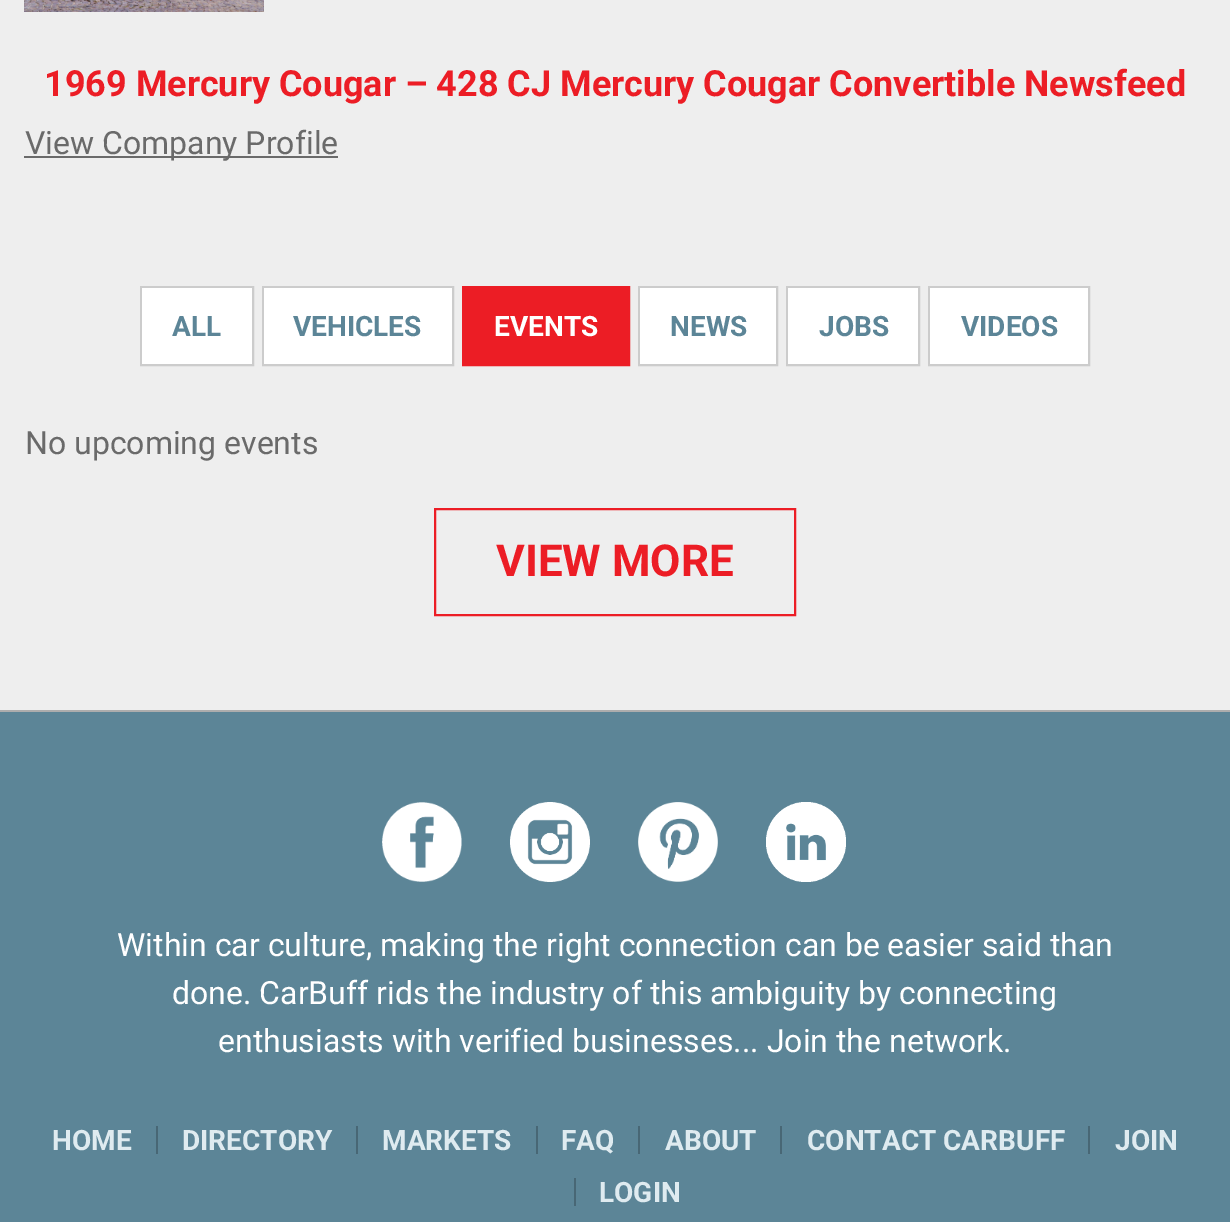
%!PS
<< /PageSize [1230 1222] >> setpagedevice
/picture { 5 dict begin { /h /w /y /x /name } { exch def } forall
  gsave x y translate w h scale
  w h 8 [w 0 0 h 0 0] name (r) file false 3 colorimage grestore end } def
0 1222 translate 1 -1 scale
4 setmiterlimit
0.361 0.522 0.592 setrgbcolor
0 0 1230 1222 rectfill
0.933 setgray
0 0 1230 710 rectfill
(img1.rgb) 24 0 240 12 picture
/Roboto-Bold [36 0 0 -36 0 0] selectfont
0.925 0.114 0.145 setrgbcolor
44 96 moveto (1969 Mercury Cougar – 428 CJ Mercury Cougar Convertible Newsfeed) show
0.416 setgray
24 156 314 2 rectfill
/Roboto-Regular [32 0 0 -32 0 0] selectfont
25 154 moveto (View Company Profile) show
0.8 setgray
2 setlinewidth
141 287 112 78 rectstroke
1 setgray
142 288 110 76 rectfill
/Roboto-Bold [28 0 0 -28 0 0] selectfont
0.361 0.522 0.592 setrgbcolor
172 336 moveto (ALL) show
0.8 setgray
263 287 190 78 rectstroke
1 setgray
264 288 188 76 rectfill
0.361 0.522 0.592 setrgbcolor
293 336 moveto (VEHICLES) show
0.925 0.114 0.145 setrgbcolor
463 287 166 78 rectstroke
464 288 164 76 rectfill
1 setgray
494 336 moveto (EVENTS) show
0.8 setgray
639 287 138 78 rectstroke
1 setgray
640 288 136 76 rectfill
0.361 0.522 0.592 setrgbcolor
670 336 moveto (NEWS) show
0.8 setgray
787 287 132 78 rectstroke
1 setgray
788 288 130 76 rectfill
0.361 0.522 0.592 setrgbcolor
819 336 moveto (JOBS) show
0.8 setgray
929 287 160 78 rectstroke
1 setgray
930 288 158 76 rectfill
0.361 0.522 0.592 setrgbcolor
961 336 moveto (VIDEOS) show
/Roboto-Regular [32 0 0 -32 0 0] selectfont
0.416 setgray
25 454 moveto (No upcoming events) show
0.925 0.114 0.145 setrgbcolor
435 509 360 106 rectstroke
/Roboto-Bold [44 0 0 -44 0 0] selectfont
496 576 moveto (VIEW MORE) show
0.678 setgray
0 710 1230 2 rectfill
(img2.rgb) 382 802 80 80 picture
(img3.rgb) 510 802 80 80 picture
(img4.rgb) 638 802 80 80 picture
(img5.rgb) 766 802 80 80 picture
/Roboto-Regular [32 0 0 -32 0 0] selectfont
1 setgray
117 956 moveto (Within car culture, making the right connection can be easier said than) show
172 1004 moveto (done. CarBuff rids the industry of this ambiguity by connecting) show
218 1052 moveto (enthusiasts with verified businesses... Join the network.) show
/Roboto-Bold [28 0 0 -28 0 0] selectfont
0.875 0.922 0.941 setrgbcolor
52 1150 moveto (HOME) show
0.282 0.404 0.459 setrgbcolor
156 1126 2 28 rectfill
0.875 0.922 0.941 setrgbcolor
182 1150 moveto (DIRECTORY) show
0.282 0.404 0.459 setrgbcolor
356 1126 2 28 rectfill
0.875 0.922 0.941 setrgbcolor
382 1150 moveto (MARKETS) show
0.282 0.404 0.459 setrgbcolor
536 1126 2 28 rectfill
0.875 0.922 0.941 setrgbcolor
561 1150 moveto (FAQ) show
0.282 0.404 0.459 setrgbcolor
638 1126 2 28 rectfill
0.875 0.922 0.941 setrgbcolor
665 1150 moveto (ABOUT) show
0.282 0.404 0.459 setrgbcolor
780 1126 2 28 rectfill
0.875 0.922 0.941 setrgbcolor
807 1150 moveto (CONTACT CARBUFF) show
0.282 0.404 0.459 setrgbcolor
1088 1126 2 28 rectfill
0.875 0.922 0.941 setrgbcolor
1115 1150 moveto (JOIN) show
0.282 0.404 0.459 setrgbcolor
574 1178 2 28 rectfill
0.875 0.922 0.941 setrgbcolor
599 1202 moveto (LOGIN) show
showpage
